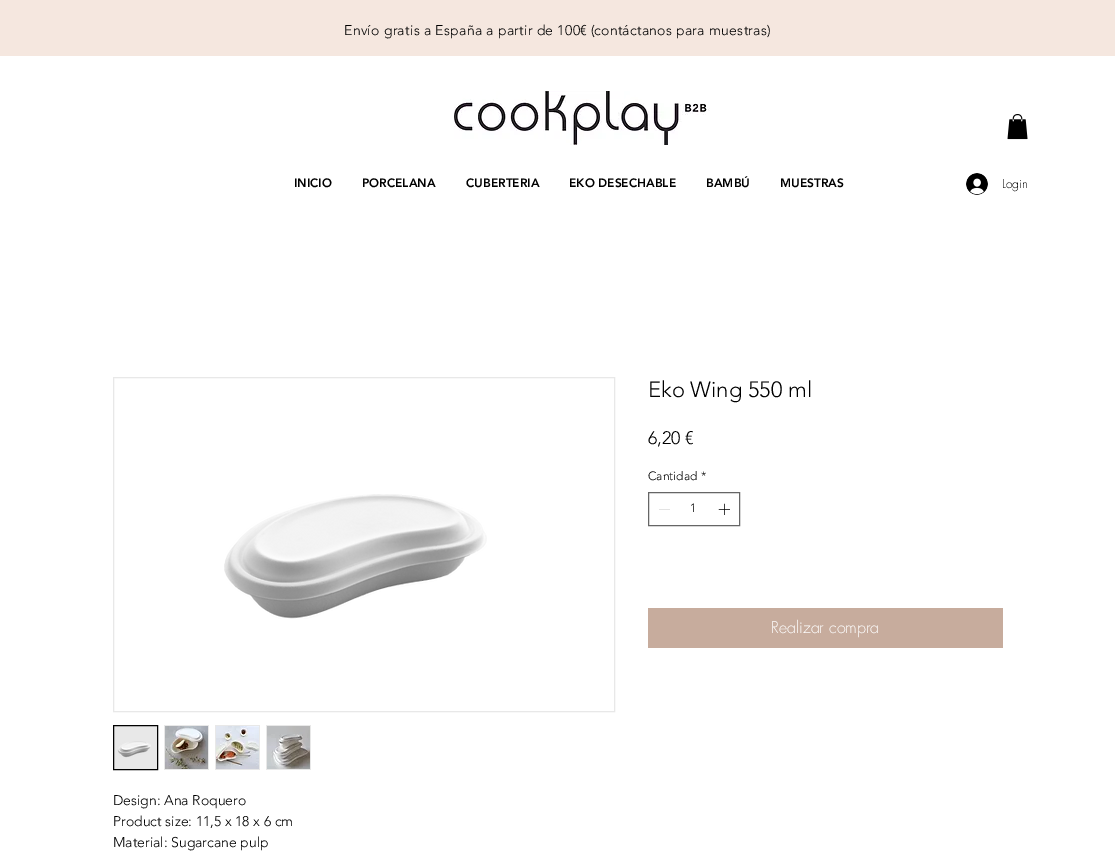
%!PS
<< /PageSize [1115 854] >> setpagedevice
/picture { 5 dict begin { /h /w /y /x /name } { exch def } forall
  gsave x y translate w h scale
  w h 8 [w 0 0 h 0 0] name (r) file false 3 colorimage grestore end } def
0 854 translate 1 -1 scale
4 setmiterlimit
1 setgray
0 0 1115 854 rectfill
0.961 0.906 0.875 setrgbcolor
0 0 1115 56 rectfill
/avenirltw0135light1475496-Light [14 0 0 -14 0 0] selectfont
0 setgray
344 35 moveto 0.3 0 (Envío gratis a España a partir de 100€ \() ashow
594 35 moveto 0.25 0 (contáctanos) ashow
676 35 moveto 0.3 0 (para muestras\)) ashow
(img1.rgb) 454 91 256 54 picture
(img2.rgb) 1007 114 21 26 picture
/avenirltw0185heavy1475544-Black [12 0 0 -12 0 0] selectfont
294 187 moveto (INICIO) show
362 187 moveto (PORCELANA) show
466 187 moveto (CUBERTERIA) show
569 187 moveto (EKO DESECHABLE) show
706 187 moveto (BAMBÚ) show
780 187 moveto (MUESTRAS) show
(img3.rgb) 966 173 22 22 picture
/futura-Light [12 0 0 -12 0 0] selectfont
1002 188 moveto (Login) show
/avenirltw0135light1475496-Light [22 0 0 -22 0 0] selectfont
648 397 moveto (Eko Wing 550 ml) show
/avenirltw0135light1475496-Light [18 0 0 -18 0 0] selectfont
648 444 moveto (6,20 €) show
/avenirltw0135light1475496-Light [12 0 0 -12 0 0] selectfont
648 480 moveto (Cantidad) show
701 480 moveto (*) show
0.4 setgray
648.5 492.5 91 33 rectstroke
0.89 setgray
659 509 11 1 rectfill
0 setgray
690 512 moveto (1) show
(img4.rgb) 718 503 12 12 picture
0.78 0.675 0.616 setrgbcolor
648 608 355 40 rectfill
/futura-Light [16 0 0 -16 0 0] selectfont
1 setgray
771 633 moveto (Realizar compra) show
0.91 setgray
113.5 377.5 501 334 rectstroke
(img5.rgb) 224 494 263 125 picture
newpath 113.5 725.5 moveto 157.5 725.5 lineto 157.5 769.5 lineto 113.5 769.5 lineto closepath gsave fill grestore
0 setgray
stroke
(img6.rgb) 117 741 34 17 picture
0.91 setgray
164 725 45 45 rectfill
(img7.rgb) 165 726 43 43 picture
215 725 45 45 rectfill
(img8.rgb) 216 726 43 43 picture
266 725 45 45 rectfill
(img9.rgb) 267 726 43 43 picture
/avenirltw0135light1475496-Light [14 0 0 -14 0 0] selectfont
0 setgray
113 805 moveto (Design: Ana Roquero) show
113 826 moveto (Product size: 11,5 x 18 x 6 cm) show
113 847 moveto (Material: Sugarcane pulp) show
showpage
